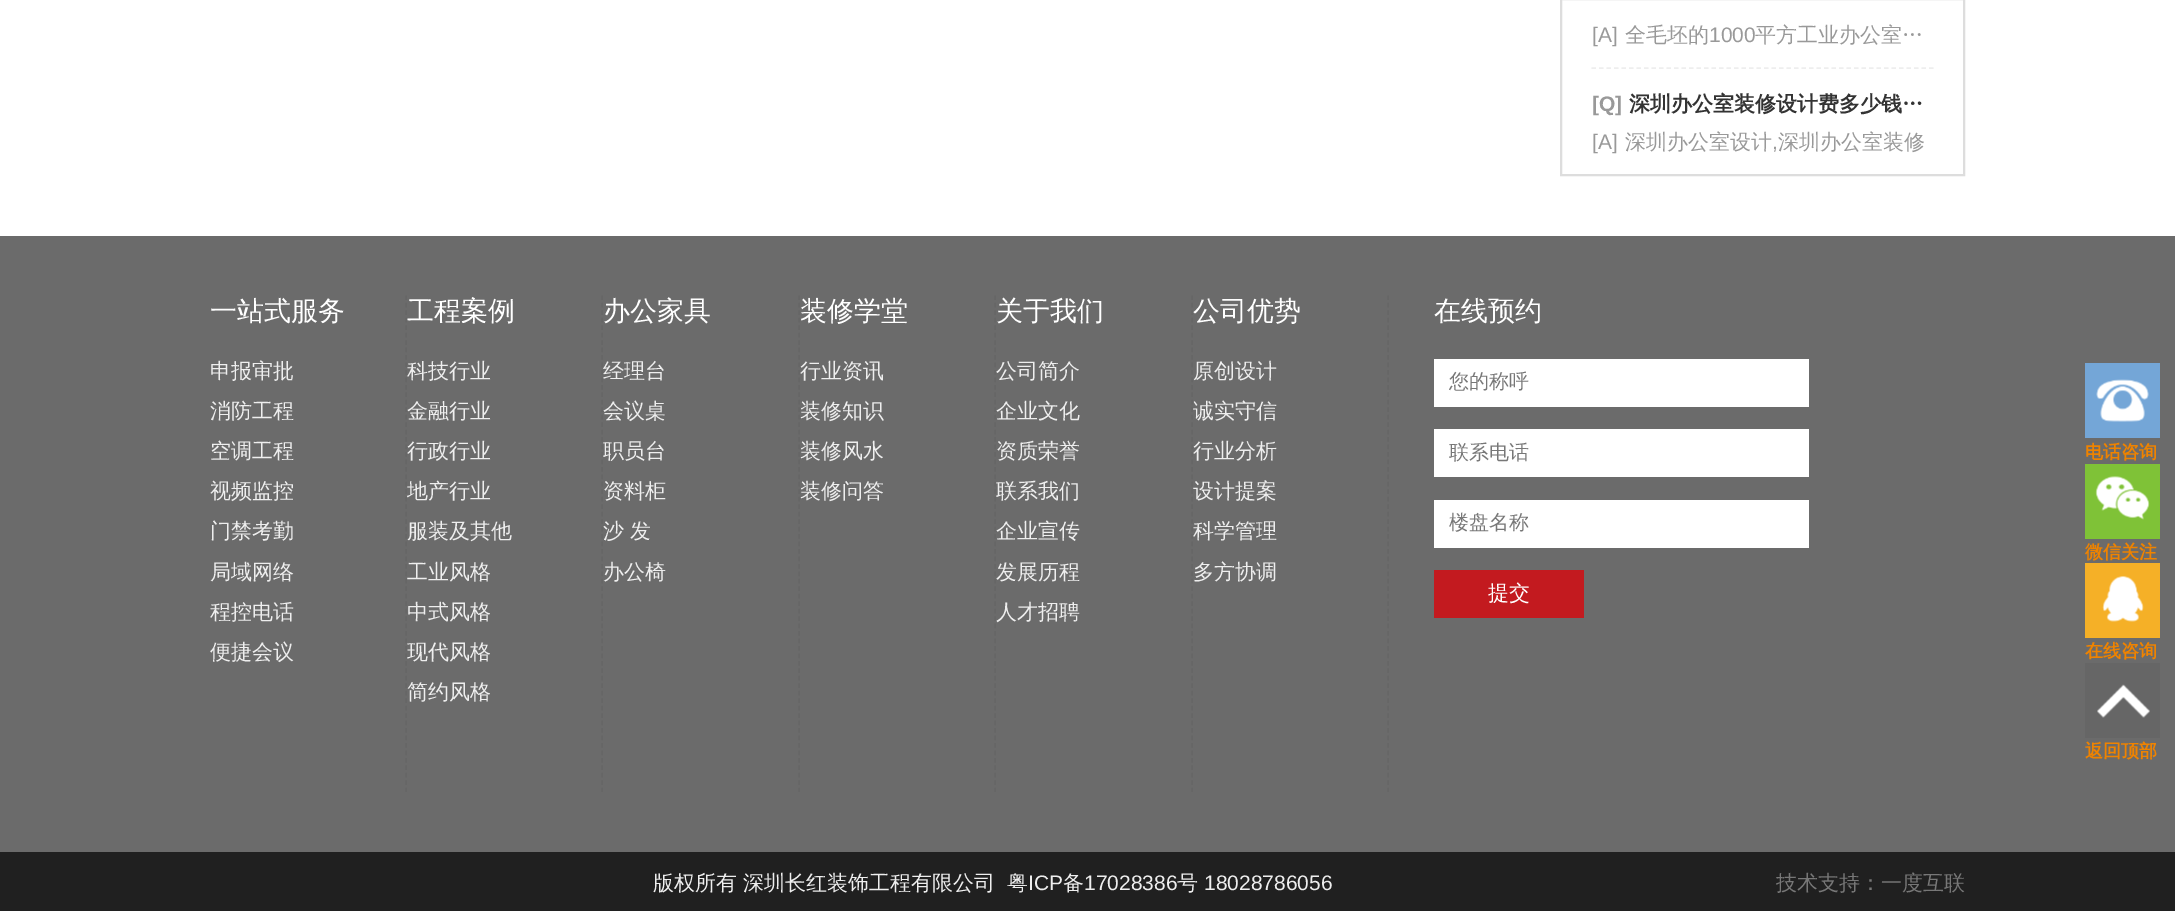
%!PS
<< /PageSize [2175 911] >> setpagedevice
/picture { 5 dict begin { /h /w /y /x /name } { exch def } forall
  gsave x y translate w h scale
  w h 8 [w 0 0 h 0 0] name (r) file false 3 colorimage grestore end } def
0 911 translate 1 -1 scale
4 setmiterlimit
1 setgray
0 0 2175 911 rectfill
0.867 setgray
2 setlinewidth
1561 -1 403 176 rectstroke
0.933 setgray
1.5 setlinewidth
[4.5 3] 0 setdash
newpath 1591.5 68 moveto 1933.5 68 lineto stroke
/LiberationSans-Regular [21 0 0 -21 0 0] selectfont
0.6 setgray
1592 42 moveto ([A]) show
/WenQuanYiZenHei-Medium [21 0 0 -21 0 0] selectfont
1625 42 moveto (全毛坯的) show
/LiberationSans-Regular [21 0 0 -21 0 0] selectfont
1709 42 moveto (1000) show
/WenQuanYiZenHei-Medium [21 0 0 -21 0 0] selectfont
1755 42 moveto (平方工业办公室…) show
/LiberationSans-Bold [21 0 0 -21 0 0] selectfont
1592 111 moveto ([Q]) show
/WenQuanYiZenHei-Bold [21 0 0 -21 0 0] selectfont
0.2 setgray
1629 111 moveto (深圳办公室装修设计费多少钱…) show
/LiberationSans-Regular [21 0 0 -21 0 0] selectfont
0.6 setgray
1592 149 moveto ([A]) show
/WenQuanYiZenHei-Medium [21 0 0 -21 0 0] selectfont
1625 149 moveto (深圳办公室设计) show
/LiberationSans-Regular [21 0 0 -21 0 0] selectfont
1772 149 moveto (,) show
/WenQuanYiZenHei-Medium [21 0 0 -21 0 0] selectfont
1778 149 moveto (深圳办公室装修) show
0.42 setgray
0 236 2175 616 rectfill
0.4 setgray
[4.5 2.96] 0 setdash
newpath 406 295.5 moveto 406 792 lineto stroke
/WenQuanYiZenHei-Medium [27 0 0 -27 0 0] selectfont
1 setgray
210 320 moveto (一站式服务) show
/WenQuanYiZenHei-Medium [21 0 0 -21 0 0] selectfont
0.933 setgray
210 378 moveto (申报审批) show
210 418 moveto (消防工程) show
210 458 moveto (空调工程) show
210 498 moveto (视频监控) show
210 538 moveto (门禁考勤) show
210 579 moveto (局域网络) show
210 619 moveto (程控电话) show
210 659 moveto (便捷会议) show
0.4 setgray
newpath 602 295.5 moveto 602 792 lineto stroke
/WenQuanYiZenHei-Medium [27 0 0 -27 0 0] selectfont
1 setgray
407 320 moveto (工程案例) show
/WenQuanYiZenHei-Medium [21 0 0 -21 0 0] selectfont
0.933 setgray
407 378 moveto (科技行业) show
407 418 moveto (金融行业) show
407 458 moveto (行政行业) show
407 498 moveto (地产行业) show
407 538 moveto (服装及其他) show
407 579 moveto (工业风格) show
407 619 moveto (中式风格) show
407 659 moveto (现代风格) show
407 699 moveto (简约风格) show
0.4 setgray
newpath 799 295.5 moveto 799 792 lineto stroke
/WenQuanYiZenHei-Medium [27 0 0 -27 0 0] selectfont
1 setgray
603 320 moveto (办公家具) show
/WenQuanYiZenHei-Medium [21 0 0 -21 0 0] selectfont
0.933 setgray
603 378 moveto (经理台) show
603 418 moveto (会议桌) show
603 458 moveto (职员台) show
603 498 moveto (资料柜) show
603 538 moveto (沙) show
630 538 moveto (发) show
603 579 moveto (办公椅) show
0.4 setgray
newpath 995 295.5 moveto 995 792 lineto stroke
/WenQuanYiZenHei-Medium [27 0 0 -27 0 0] selectfont
1 setgray
800 320 moveto (装修学堂) show
/WenQuanYiZenHei-Medium [21 0 0 -21 0 0] selectfont
0.933 setgray
800 378 moveto (行业资讯) show
800 418 moveto (装修知识) show
800 458 moveto (装修风水) show
800 498 moveto (装修问答) show
0.4 setgray
newpath 1192 295.5 moveto 1192 792 lineto stroke
/WenQuanYiZenHei-Medium [27 0 0 -27 0 0] selectfont
1 setgray
996 320 moveto (关于我们) show
/WenQuanYiZenHei-Medium [21 0 0 -21 0 0] selectfont
0.933 setgray
996 378 moveto (公司简介) show
996 418 moveto (企业文化) show
996 458 moveto (资质荣誉) show
996 498 moveto (联系我们) show
996 538 moveto (企业宣传) show
996 579 moveto (发展历程) show
996 619 moveto (人才招聘) show
0.4 setgray
newpath 1388 295.5 moveto 1388 792 lineto stroke
/WenQuanYiZenHei-Medium [27 0 0 -27 0 0] selectfont
1 setgray
1193 320 moveto (公司优势) show
/WenQuanYiZenHei-Medium [21 0 0 -21 0 0] selectfont
0.933 setgray
1193 378 moveto (原创设计) show
1193 418 moveto (诚实守信) show
1193 458 moveto (行业分析) show
1193 498 moveto (设计提案) show
1193 538 moveto (科学管理) show
1193 579 moveto (多方协调) show
/WenQuanYiZenHei-Medium [27 0 0 -27 0 0] selectfont
1 setgray
1434 320 moveto (在线预约) show
1434 359 375 48 rectfill
/WenQuanYiZenHei-Medium [20 0 0 -20 0 0] selectfont
0.467 setgray
1449 388 moveto (您的称呼) show
1 setgray
1434 429 375 48 rectfill
0.467 setgray
1449 459 moveto (联系电话) show
1 setgray
1434 500 375 48 rectfill
0.467 setgray
1449 529 moveto (楼盘名称) show
0.765 0.102 0.122 setrgbcolor
1434 570 150 48 rectfill
/WenQuanYiZenHei-Medium [21 0 0 -21 0 0] selectfont
1 setgray
1488 600 moveto (提交) show
0.125 setgray
0 852 2175 59 rectfill
0.933 setgray
653 890 moveto (版权所有) show
743 890 moveto (深圳长红装饰工程有限公司) show
1007 890 moveto (粤) show
/LiberationSans-Regular [21 0 0 -21 0 0] selectfont
1028 890 moveto (ICP) show
/WenQuanYiZenHei-Medium [21 0 0 -21 0 0] selectfont
1063 890 moveto (备) show
/LiberationSans-Regular [21 0 0 -21 0 0] selectfont
1084 890 moveto (17028386) show
/WenQuanYiZenHei-Medium [21 0 0 -21 0 0] selectfont
1177 890 moveto (号) show
/LiberationSans-Regular [21 0 0 -21 0 0] selectfont
1204 890 moveto (18028786056) show
/WenQuanYiZenHei-Medium [21 0 0 -21 0 0] selectfont
0.467 setgray
1776 890 moveto (技术支持：一度互联) show
0.455 0.651 0.843 setrgbcolor
2085 363 75 75 rectfill
(img1.rgb) 2096 379 53 43 picture
/WenQuanYiZenHei-Bold [18 0 0 -18 0 0] selectfont
0.937 0.514 0 setrgbcolor
2085 458 moveto (电话咨询) show
0.498 0.761 0.216 setrgbcolor
2085 464 75 75 rectfill
(img2.rgb) 2095 476 55 44 picture
0.937 0.514 0 setrgbcolor
2085 558 moveto (微信关注) show
0.961 0.69 0.153 setrgbcolor
2085 563 75 75 rectfill
(img3.rgb) 2102 576 42 46 picture
0.937 0.514 0 setrgbcolor
2085 657 moveto (在线咨询) show
0.4 setgray
2085 663 75 75 rectfill
(img4.rgb) 2097 684 53 34 picture
0.937 0.514 0 setrgbcolor
2085 757 moveto (返回顶部) show
showpage
